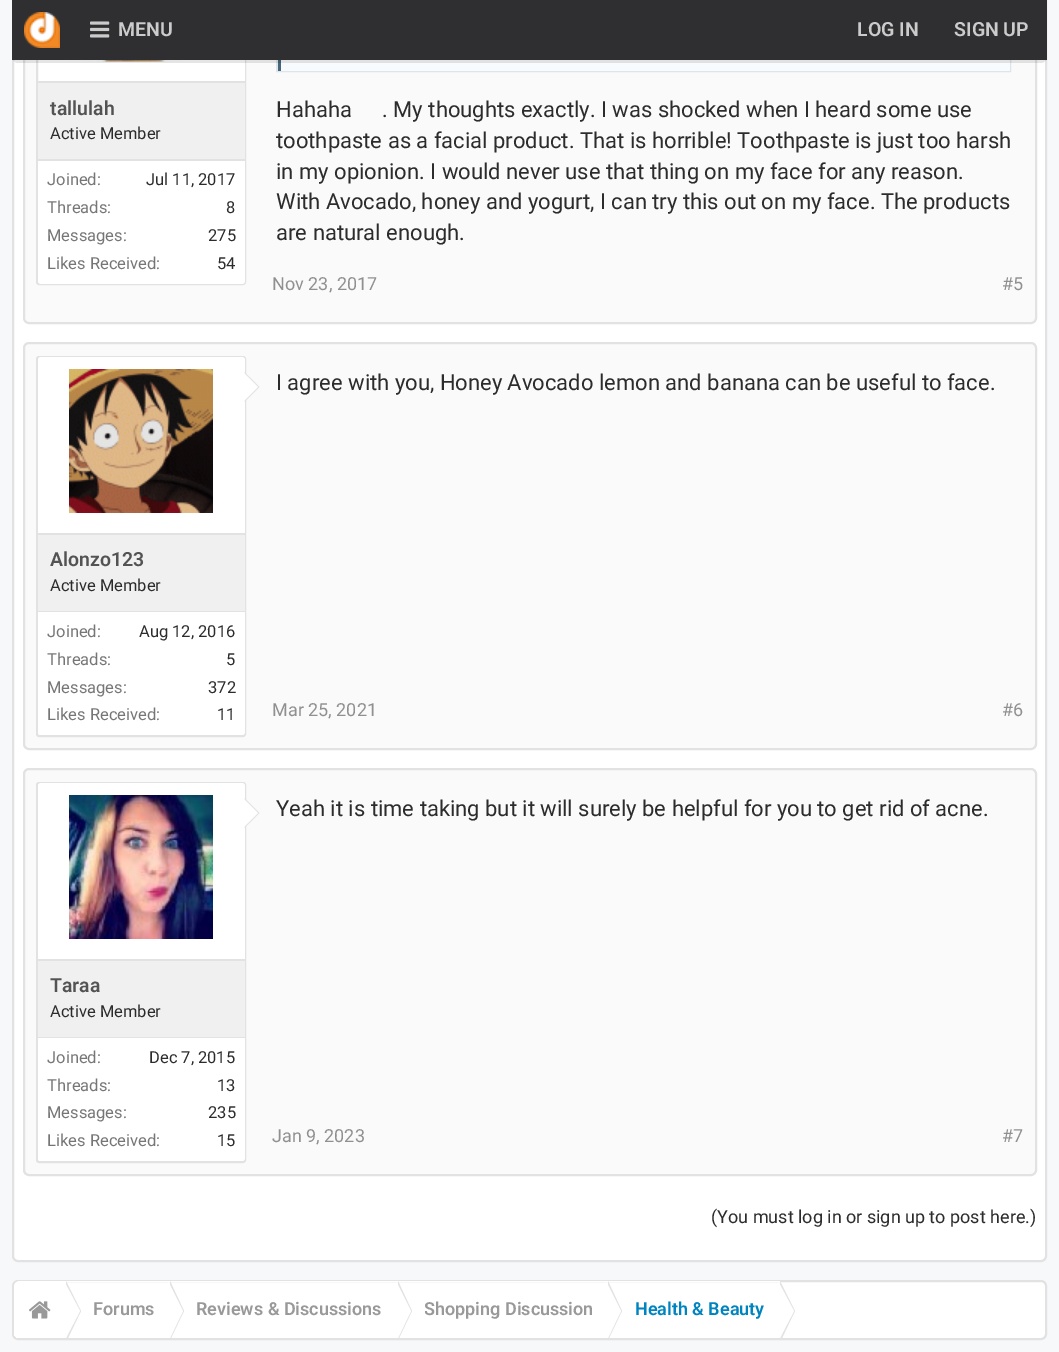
%!PS
<< /PageSize [1059 1352] /PageUsesTransparency true >> setpagedevice
/alpha { dup .setfillconstantalpha .setstrokeconstantalpha } def
/roundrect { 5 dict begin { /r /h /w /y /x } { exch def } forall
  x r add y moveto x w add y 2 copy h add r arct x w add y h add x 1 index r arct
  x y h add x y r arct x y 2 copy exch w add exch r arct closepath end } def
/picture { 5 dict begin { /h /w /y /x /name } { exch def } forall
  gsave x y translate w h scale
  w h 8 [w 0 0 h 0 0] name (r) file false 3 colorimage grestore end } def
0 .pushpdf14devicefilter
0 1352 translate 1 -1 scale
4 setmiterlimit
0.965 0.973 0.976 setrgbcolor
0 0 1059 1352 rectfill
1 setgray
13 -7 1033 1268 5 roundrect gsave fill grestore
0.886 setgray
2 setlinewidth
stroke
0.98 setgray
24 -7 1012 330 5 roundrect gsave fill grestore
0.886 setgray
stroke
1 setgray
37 -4 208 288 2 roundrect gsave fill grestore
0.886 setgray
stroke
1 setgray
244 60 1 21 rectfill
(img3.rgb) 69 60 132 2 picture
0.867 0.898 0.918 setrgbcolor
277 -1 733 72 rectstroke
0.973 0.984 0.992 setrgbcolor
281 60 729 11 rectfill
0.275 0.4 0.486 setrgbcolor
278 60 3 11 rectfill
0.1 alpha
0 setgray
newpath 12 54 moveto 12 57 lineto 12 60 15 63 18 63 curveto 1041 63 lineto 1044 63 1047 60 1047 57 curveto 1047 54 lineto 1047 57 1044 60 1041 60 curveto 18 60 lineto 15 60 12 57 12 54 curveto closepath fill
1 alpha
0.184 0.184 0.192 setrgbcolor
12 0 1035 60 rectfill
(img1.rgb) 24 12 36 36 picture
(img2.rgb) 90 21 20 17 picture
/Roboto-SemiBold [19.5 0 0 -19.5 0 0] selectfont
0.796 0.796 0.8 setrgbcolor
118 36 moveto (MENU) show
857 36 moveto (LOG IN) show
954 36 moveto (SIGN UP) show
0.941 setgray
38 83 207 76 rectfill
0.886 setgray
38 81 207 2 rectfill
38 159 207 2 rectfill
0.325 setgray
50 115 moveto (tallulah) show
/Roboto-Regular [16.5 0 0 -16.5 0 0] selectfont
0.173 setgray
50 139 moveto (Active Member) show
1 setgray
newpath 38 161 moveto 245 161 lineto 245 281 lineto 245 282.5 243.5 284 242 284 curveto 41 284 lineto 39.5 284 38 282.5 38 281 curveto closepath fill
0.463 setgray
47 185 moveto (Joined:) show
0.173 setgray
146 185 moveto (Jul 11, 2017) show
0.463 setgray
47 213 moveto (Threads:) show
0.173 setgray
226 213 moveto (8) show
0.463 setgray
47 241 moveto (Messages:) show
0.173 setgray
208 241 moveto (275) show
0.463 setgray
47 269 moveto (Likes Received:) show
0.173 setgray
217 269 moveto (54) show
/Roboto-Regular [22 0 0 -22 0 0] selectfont
276 117 moveto (Hahaha) show
382 117 moveto (. My thoughts exactly. I was shocked when I heard some use) show
276 148 moveto (toothpaste as a facial product. That is horrible! Toothpaste is just too harsh) show
276 179 moveto (in my opionion. I would never use that thing on my face for any reason.) show
276 209 moveto (With Avocado, honey and yogurt, I can try this out on my face. The products) show
276 240 moveto (are natural enough.) show
/Roboto-Regular [18 0 0 -18 0 0] selectfont
0.565 setgray
272 290 moveto (Nov 23, 2017) show
1002 290 moveto (#5) show
0.98 setgray
24 343 1012 406 5 roundrect gsave fill grestore
0.886 setgray
stroke
1 setgray
37 357 208 379 2 roundrect gsave fill grestore
0.886 setgray
stroke
1 setgray
newpath 41 357 moveto 242 357 lineto 243.5 357 245 358.5 245 360 curveto 245 533 lineto 38 533 lineto 38 360 lineto 38 358.5 39.5 357 41 357 curveto closepath fill
(img4.rgb) 69 369 144 144 picture
0.886 setgray
newpath 244.5 402 moveto 244.5 372 lineto 259.5 387 lineto closepath fill
1 setgray
newpath 243 402 moveto 243 372 lineto 258 387 lineto closepath fill
0.941 setgray
38 535 207 76 rectfill
0.886 setgray
38 533 207 2 rectfill
38 611 207 1 rectfill
/Roboto-SemiBold [19.5 0 0 -19.5 0 0] selectfont
0.325 setgray
50 566 moveto (Alonzo123) show
/Roboto-Regular [16.5 0 0 -16.5 0 0] selectfont
0.173 setgray
50 591 moveto (Active Member) show
1 setgray
newpath 38 612 moveto 245 612 lineto 245 732 lineto 245 733.5 243.5 735 242 735 curveto 41 735 lineto 39.5 735 38 733.5 38 732 curveto closepath fill
0.463 setgray
47 637 moveto (Joined:) show
0.173 setgray
139 637 moveto (Aug 12, 2016) show
0.463 setgray
47 665 moveto (Threads:) show
0.173 setgray
226 665 moveto (5) show
0.463 setgray
47 693 moveto (Messages:) show
0.173 setgray
208 693 moveto (372) show
0.463 setgray
47 720 moveto (Likes Received:) show
0.173 setgray
217 720 moveto (11) show
/Roboto-Regular [22 0 0 -22 0 0] selectfont
276 390 moveto (I agree with you, Honey Avocado lemon and banana can be useful to face.) show
/Roboto-Regular [18 0 0 -18 0 0] selectfont
0.565 setgray
272 716 moveto (Mar 25, 2021) show
1002 716 moveto (#6) show
0.98 setgray
24 769 1012 406 5 roundrect gsave fill grestore
0.886 setgray
stroke
1 setgray
37 783 208 379 2 roundrect gsave fill grestore
0.886 setgray
stroke
1 setgray
newpath 41 783 moveto 242 783 lineto 243.5 783 245 784.5 245 786 curveto 245 959 lineto 38 959 lineto 38 786 lineto 38 784.5 39.5 783 41 783 curveto closepath fill
(img5.rgb) 69 795 144 144 picture
0.886 setgray
newpath 244.5 828 moveto 244.5 798 lineto 259.5 813 lineto closepath fill
1 setgray
newpath 243 828 moveto 243 798 lineto 258 813 lineto closepath fill
0.941 setgray
38 961 207 76 rectfill
0.886 setgray
38 959 207 2 rectfill
38 1037 207 1 rectfill
/Roboto-SemiBold [19.5 0 0 -19.5 0 0] selectfont
0.325 setgray
50 992 moveto (Taraa) show
/Roboto-Regular [16.5 0 0 -16.5 0 0] selectfont
0.173 setgray
50 1017 moveto (Active Member) show
1 setgray
newpath 38 1038 moveto 245 1038 lineto 245 1158 lineto 245 1159.5 243.5 1161 242 1161 curveto 41 1161 lineto 39.5 1161 38 1159.5 38 1158 curveto closepath fill
0.463 setgray
47 1063 moveto (Joined:) show
0.173 setgray
149 1063 moveto (Dec 7, 2015) show
0.463 setgray
47 1091 moveto (Threads:) show
0.173 setgray
217 1091 moveto (13) show
0.463 setgray
47 1118 moveto (Messages:) show
0.173 setgray
208 1118 moveto (235) show
0.463 setgray
47 1146 moveto (Likes Received:) show
0.173 setgray
217 1146 moveto (15) show
/Roboto-Regular [22 0 0 -22 0 0] selectfont
276 816 moveto (Yeah it is time taking but it will surely be helpful for you to get rid of acne.) show
/Roboto-Regular [18 0 0 -18 0 0] selectfont
0.565 setgray
272 1142 moveto (Jan 9, 2023) show
1002 1142 moveto (#7) show
0.173 setgray
711 1223 moveto (\(You must log in or sign up to post here.\)) show
1 setgray
13 1281 1033 58 5 roundrect gsave fill grestore
0.886 setgray
stroke
gsave
14 1281 1032 57 5 roundrect clip newpath
1 setgray
newpath 20 1281 moveto 66 1281 lineto 66 1340 lineto 20 1340 lineto 16.5 1340 14 1337.5 14 1334 curveto 14 1287 lineto 14 1283.5 16.5 1281 20 1281 curveto closepath fill
grestore
(img6.rgb) 29 1301 22 18 picture
1 setgray
66 1281 714 1 rectfill
0.886 setgray
newpath 68 1338 moveto 66 1338 lineto 66 1281 lineto 81 1311 lineto closepath fill
1 setgray
newpath 66 1338 moveto 64 1338 lineto 64 1281 lineto 80 1311 lineto closepath fill
/Roboto-SemiBold [18 0 0 -18 0 0] selectfont
0.6 setgray
93 1315 moveto (Forums) show
0.886 setgray
newpath 171 1338 moveto 170 1338 lineto 170 1281 lineto 184 1311 lineto closepath fill
1 setgray
newpath 170 1338 moveto 168 1338 lineto 168 1281 lineto 183 1311 lineto closepath fill
0.6 setgray
196 1315 moveto (Reviews & Discussions) show
0.886 setgray
newpath 399 1338 moveto 398 1338 lineto 398 1281 lineto 412 1311 lineto closepath fill
1 setgray
newpath 398 1338 moveto 396 1338 lineto 396 1281 lineto 411 1311 lineto closepath fill
gsave
425 1281 168 57 rectclip
0.6 setgray
424 1315 moveto (Shopping Discussion) show
grestore
0.886 setgray
newpath 609 1338 moveto 608 1338 lineto 608 1281 lineto 622 1311 lineto closepath fill
1 setgray
newpath 608 1338 moveto 606 1338 lineto 606 1281 lineto 621 1311 lineto closepath fill
0 0.518 0.749 setrgbcolor
635 1315 moveto (Health & Beauty) show
0.886 setgray
newpath 782 1338 moveto 780 1338 lineto 780 1281 lineto 795 1311 lineto closepath fill
1 setgray
newpath 780 1338 moveto 778 1338 lineto 778 1281 lineto 794 1311 lineto closepath fill
.poppdf14devicefilter showpage
